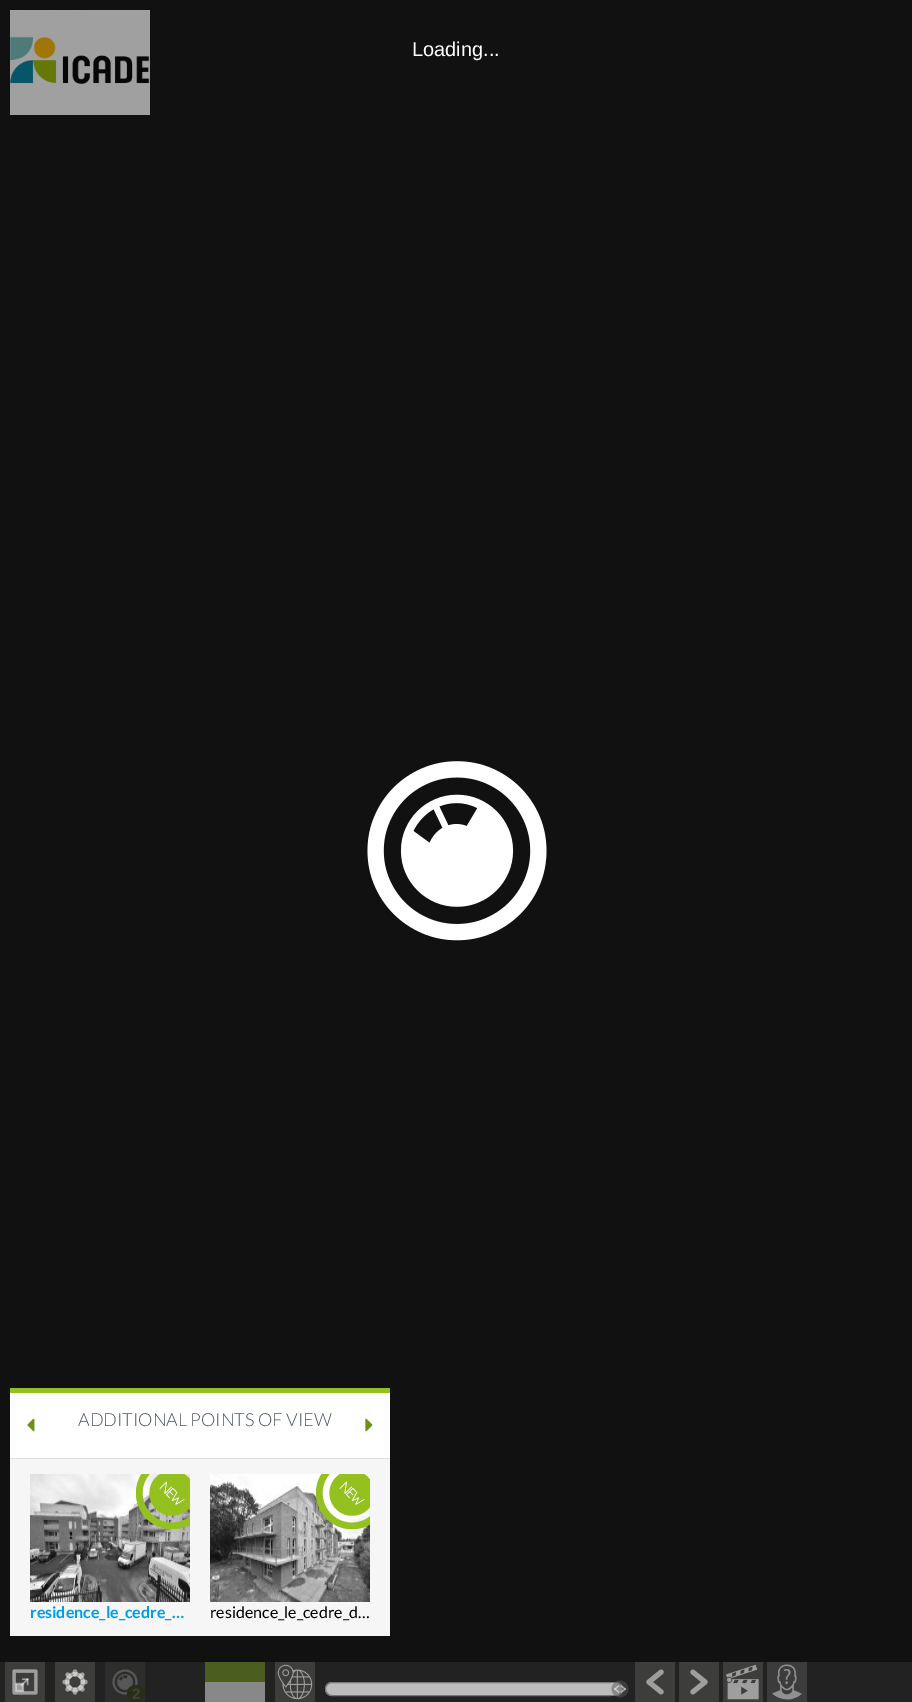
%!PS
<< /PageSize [912 1702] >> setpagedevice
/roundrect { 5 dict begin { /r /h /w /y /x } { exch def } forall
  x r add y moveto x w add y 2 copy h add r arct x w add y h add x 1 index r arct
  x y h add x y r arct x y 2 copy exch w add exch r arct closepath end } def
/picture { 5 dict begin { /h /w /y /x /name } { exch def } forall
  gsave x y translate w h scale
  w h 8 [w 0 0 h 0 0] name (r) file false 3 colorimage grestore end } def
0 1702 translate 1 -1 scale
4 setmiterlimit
0.067 setgray
0 0 912 1702 rectfill
(img1.rgb) 10 10 140 105 picture
(img2.rgb) 367 761 180 180 picture
/LiberationSans-Regular [20 0 0 -20 0 0] selectfont
1 setgray
412 56 moveto (Loading...) show
0.965 setgray
10 1459 380 177 rectfill
1 setgray
10 1393 380 65 rectfill
0.584 0.757 0.118 setrgbcolor
10 1388 380 5 rectfill
0.867 setgray
10 1458 380 1 rectfill
/Lato-Light [18 0 0 -18 0 0] selectfont
0.286 0.329 0.408 setrgbcolor
78 1426 moveto (ADDITIONAL POINTS OF VIEW) show
(img3.rgb) 27 1418 8 14 picture
(img4.rgb) 365 1418 8 14 picture
(img5.rgb) 30 1474 160 128 picture
(img6.rgb) 136 1474 54 55 picture
/Lato-Bold [16 0 0 -16 0 0] selectfont
0 0.62 0.89 setrgbcolor
30 1618 moveto (residence_le_cedre_…) show
(img7.rgb) 210 1474 160 128 picture
(img8.rgb) 316 1474 54 55 picture
/Lato-Regular [16 0 0 -16 0 0] selectfont
0 setgray
210 1618 moveto (residence_le_cedre_d…) show
0.133 setgray
0 1662 912 40 rectfill
(img9.rgb) 5 1662 40 40 picture
(img10.rgb) 55 1662 40 40 picture
(img11.rgb) 105 1662 40 40 picture
0.161 0.184 0.09 setrgbcolor
127 1685 18 17 8.5 roundrect fill
/LiberationSans-Bold [15 0 0 -15 0 0] selectfont
0.255 setgray
132 1699 moveto (2) show
0.298 0.365 0.125 setrgbcolor
205 1662 60 20 rectfill
0.533 setgray
205 1682 60 20 rectfill
(img12.rgb) 275 1662 40 40 picture
0.502 setgray
325 1682 298 14 7 roundrect fill
(img13.rgb) 325 1683 298 13 picture
0.467 setgray
325.5 1682.5 297 13 6.5 roundrect stroke
(img14.rgb) 611 1680 18 18 picture
(img15.rgb) 635 1662 40 40 picture
(img16.rgb) 679 1662 40 40 picture
(img17.rgb) 723 1662 40 40 picture
(img18.rgb) 767 1662 40 40 picture
showpage
